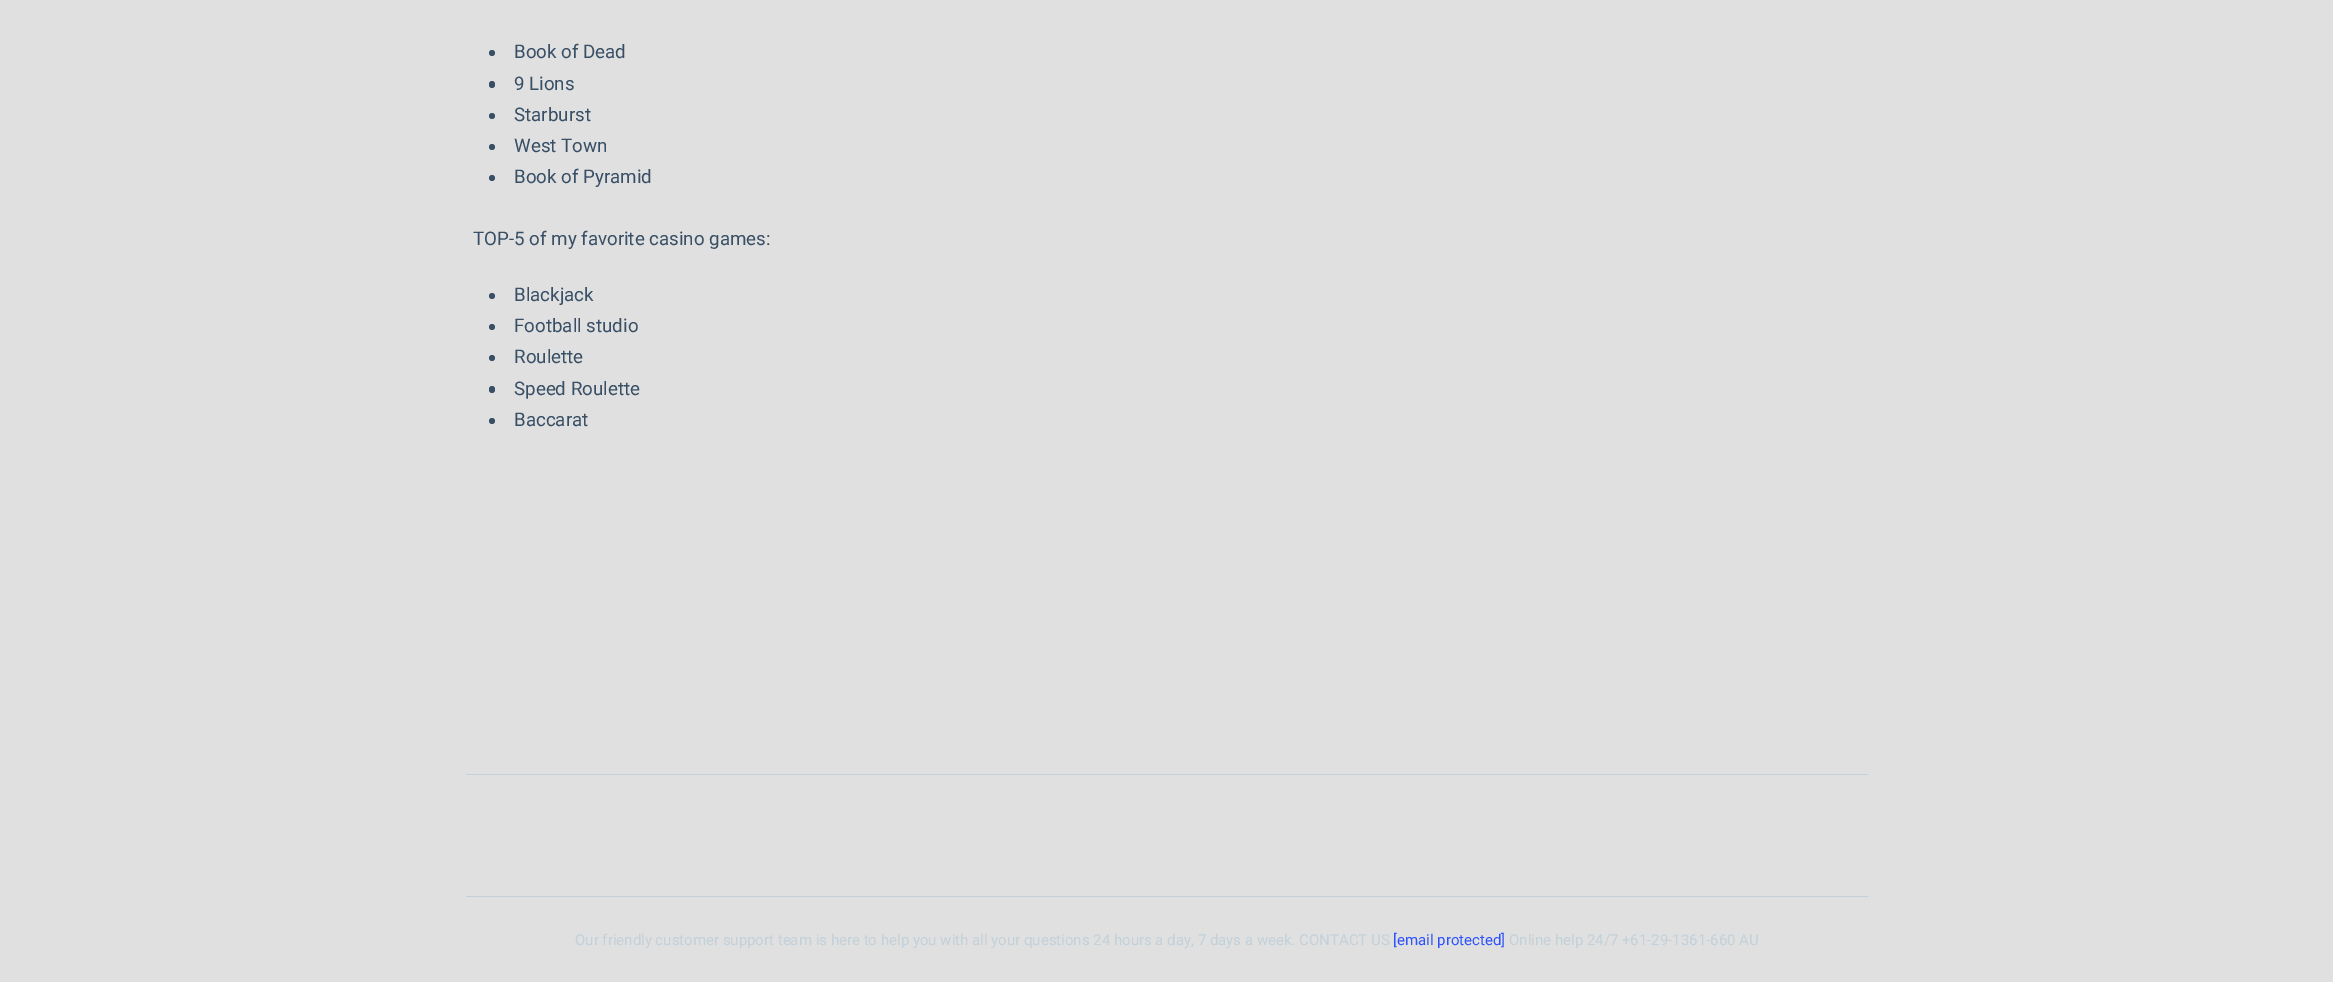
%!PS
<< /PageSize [2333 982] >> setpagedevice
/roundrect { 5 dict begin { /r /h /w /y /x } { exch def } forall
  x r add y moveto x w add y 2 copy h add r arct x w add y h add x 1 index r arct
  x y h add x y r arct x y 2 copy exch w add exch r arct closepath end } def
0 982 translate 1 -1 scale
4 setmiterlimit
0.878 setgray
0 0 2333 982 rectfill
0.22 0.31 0.4 setrgbcolor
newpath 492 53 3 0 360 arc closepath fill
/Roboto-Regular [18.75 0 0 -18.75 0 0] selectfont
514 58 moveto (Book of Dead) show
489 81 6 7 3 roundrect fill
514 90 moveto (9 Lions) show
newpath 492 116 3 0 360 arc closepath fill
514 121 moveto (Starburst) show
newpath 492 147 3 0 360 arc closepath fill
514 152 moveto (West Town) show
newpath 492 178 3 0 360 arc closepath fill
514 183 moveto (Book of Pyramid) show
473 245 moveto (TOP-5 of my favorite casino games:) show
newpath 492 296 3 0 360 arc closepath fill
514 301 moveto (Blackjack) show
newpath 492 327 3 0 360 arc closepath fill
514 332 moveto (Football studio) show
newpath 492 358 3 0 360 arc closepath fill
514 363 moveto (Roulette) show
489 386 6 7 3 roundrect fill
514 395 moveto (Speed Roulette) show
newpath 492 421 3 0 360 arc closepath fill
514 426 moveto (Baccarat) show
0.765 0.82 0.855 setrgbcolor
466 774 1402 1 rectfill
466 896 1402 1 rectfill
/Roboto-Regular [15 0 0 -15 0 0] selectfont
575 945 moveto (Our friendly customer support team is here to help you with all your questions 24 hours a day, 7 days a week. CONTACT US) show
0.18 0.325 0.992 setrgbcolor
1393 945 moveto ([email protected]) show
0.765 0.82 0.855 setrgbcolor
1509 945 moveto (Online help 24/7 +61-29-1361-660 AU) show
showpage
